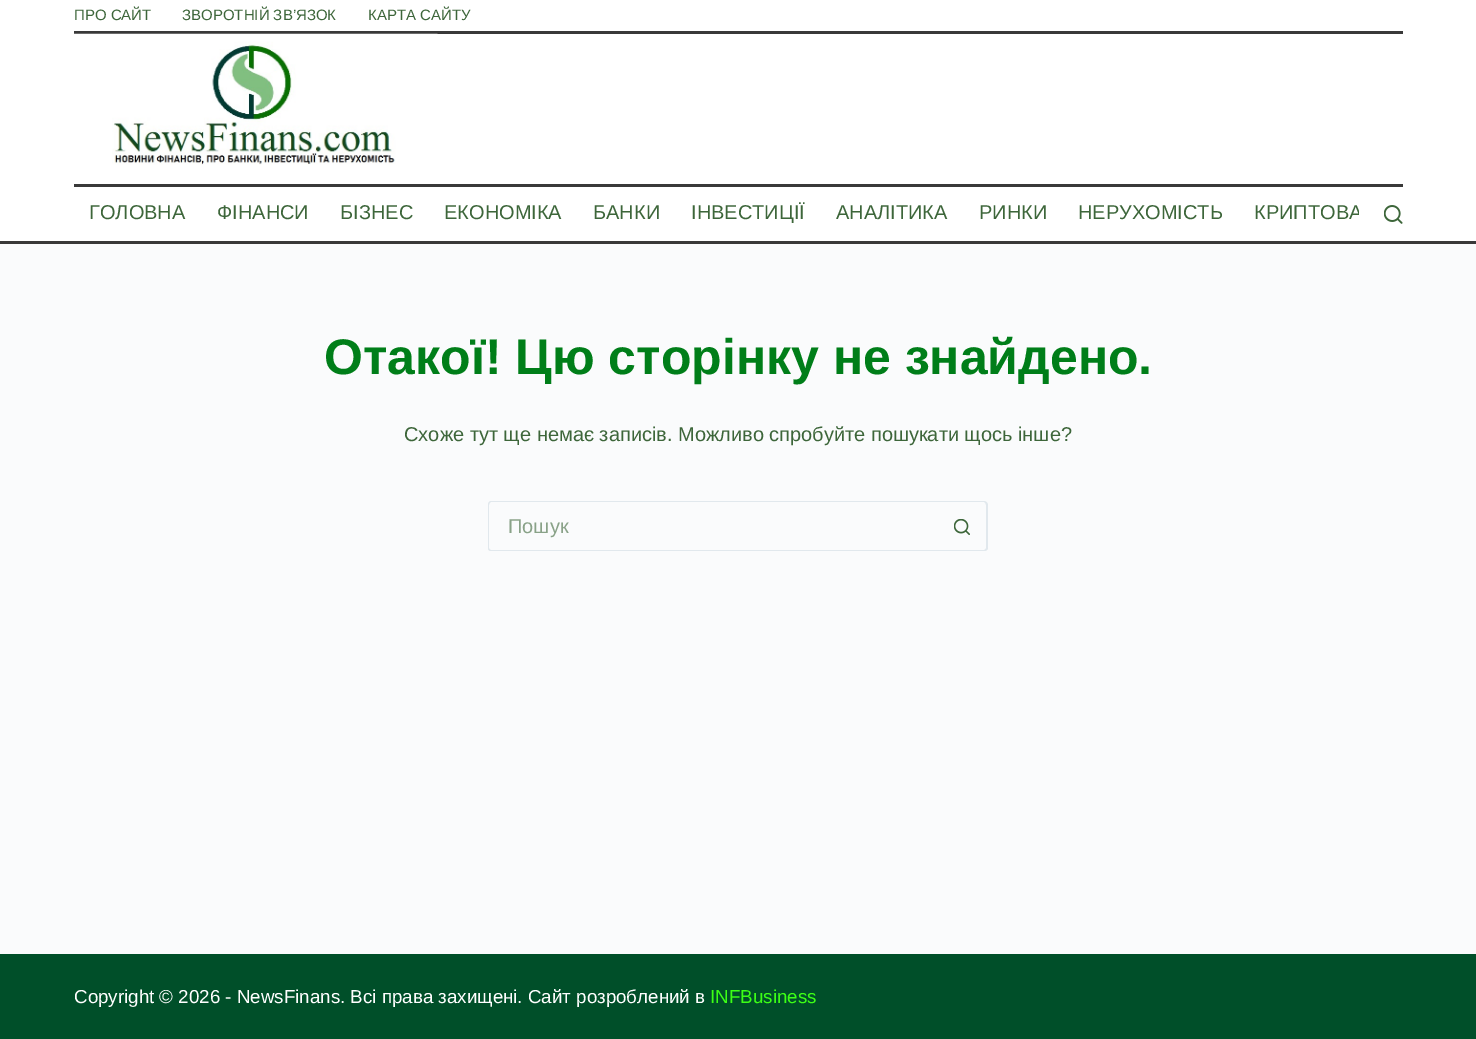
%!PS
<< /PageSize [1476 1039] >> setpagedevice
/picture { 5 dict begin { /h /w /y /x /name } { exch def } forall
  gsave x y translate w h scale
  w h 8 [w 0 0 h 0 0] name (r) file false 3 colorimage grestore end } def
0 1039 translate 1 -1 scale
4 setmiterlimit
0.98 0.984 0.988 setrgbcolor
0 0 1476 1039 rectfill
1 setgray
0 0 1476 241 rectfill
/LiberationSans-Regular [15 0 0 -15 0 0] selectfont
0.239 0.4 0.227 setrgbcolor
74 20 moveto (ПРО САЙТ) show
182 20 moveto (ЗВОРОТНІЙ ЗВ’ЯЗОК) show
368 20 moveto (КАРТА САЙТУ) show
0.224 setgray
74 31 1329 3 rectfill
74 184 1329 3 rectfill
(img1.rgb) 74 33 364 132 picture
0 241 1476 3 rectfill
/LiberationSans-Regular [20 0 0 -20 0 0] selectfont
0.239 0.4 0.227 setrgbcolor
89 219 moveto (ГОЛОВНА) show
217 219 moveto (ФІНАНСИ) show
340 219 moveto (БІЗНЕС) show
444 219 moveto (ЕКОНОМІКА) show
593 219 moveto (БАНКИ) show
691 219 moveto (ІНВЕСТИЦІЇ) show
836 219 moveto (АНАЛІТИКА) show
979 219 moveto (РИНКИ) show
1078 219 moveto (НЕРУХОМІСТЬ) show
gsave
74 186 1285 55 rectclip
1254 219 moveto (КРИПТОВА) show
grestore
(img2.rgb) 1384 205 19 19 picture
/LiberationSans-Bold [50 0 0 -50 0 0] selectfont
0 0.494 0.098 setrgbcolor
324 374 moveto (Отакої! Цю сторінку не знайдено.) show
/LiberationSans-Regular [20 0 0 -20 0 0] selectfont
0.239 0.4 0.227 setrgbcolor
404 441 moveto (Схоже тут ще немає записів. Можливо спробуйте пошукати щось інше?) show
0.882 0.91 0.929 setrgbcolor
newpath 491 501 moveto 938 501 lineto 938 551 lineto 491 551 lineto 489 551 488 550 488 548 curveto 488 505 lineto 488 503 489 501 491 501 curveto closepath 491 502 moveto 938 502 lineto 938 550 lineto 491 550 lineto 490 550 489 549 489 548 curveto 489 505 lineto 489 504 490 502 491 502 curveto closepath eofill
0.537 0.635 0.533 setrgbcolor
508 533 moveto (Пошук) show
0.882 0.91 0.929 setrgbcolor
newpath 938 501 moveto 984 501 lineto 986 501 988 503 988 505 curveto 988 548 lineto 988 550 986 551 984 551 curveto 938 551 lineto closepath 938 502 moveto 984 502 lineto 985 502 986 504 986 505 curveto 986 548 lineto 986 549 985 550 984 550 curveto 938 550 lineto closepath eofill
(img3.rgb) 954 519 16 16 picture
0 0.31 0.161 setrgbcolor
0 954 1476 85 rectfill
/LiberationSans-Regular [18.75 0 0 -18.75 0 0] selectfont
1 setgray
74 1003 moveto (Copyright © 2026 - NewsFinans. Всі права захищені. Сайт розроблений в) show
0.235 1 0.086 setrgbcolor
710 1003 moveto (INFBusiness) show
showpage
